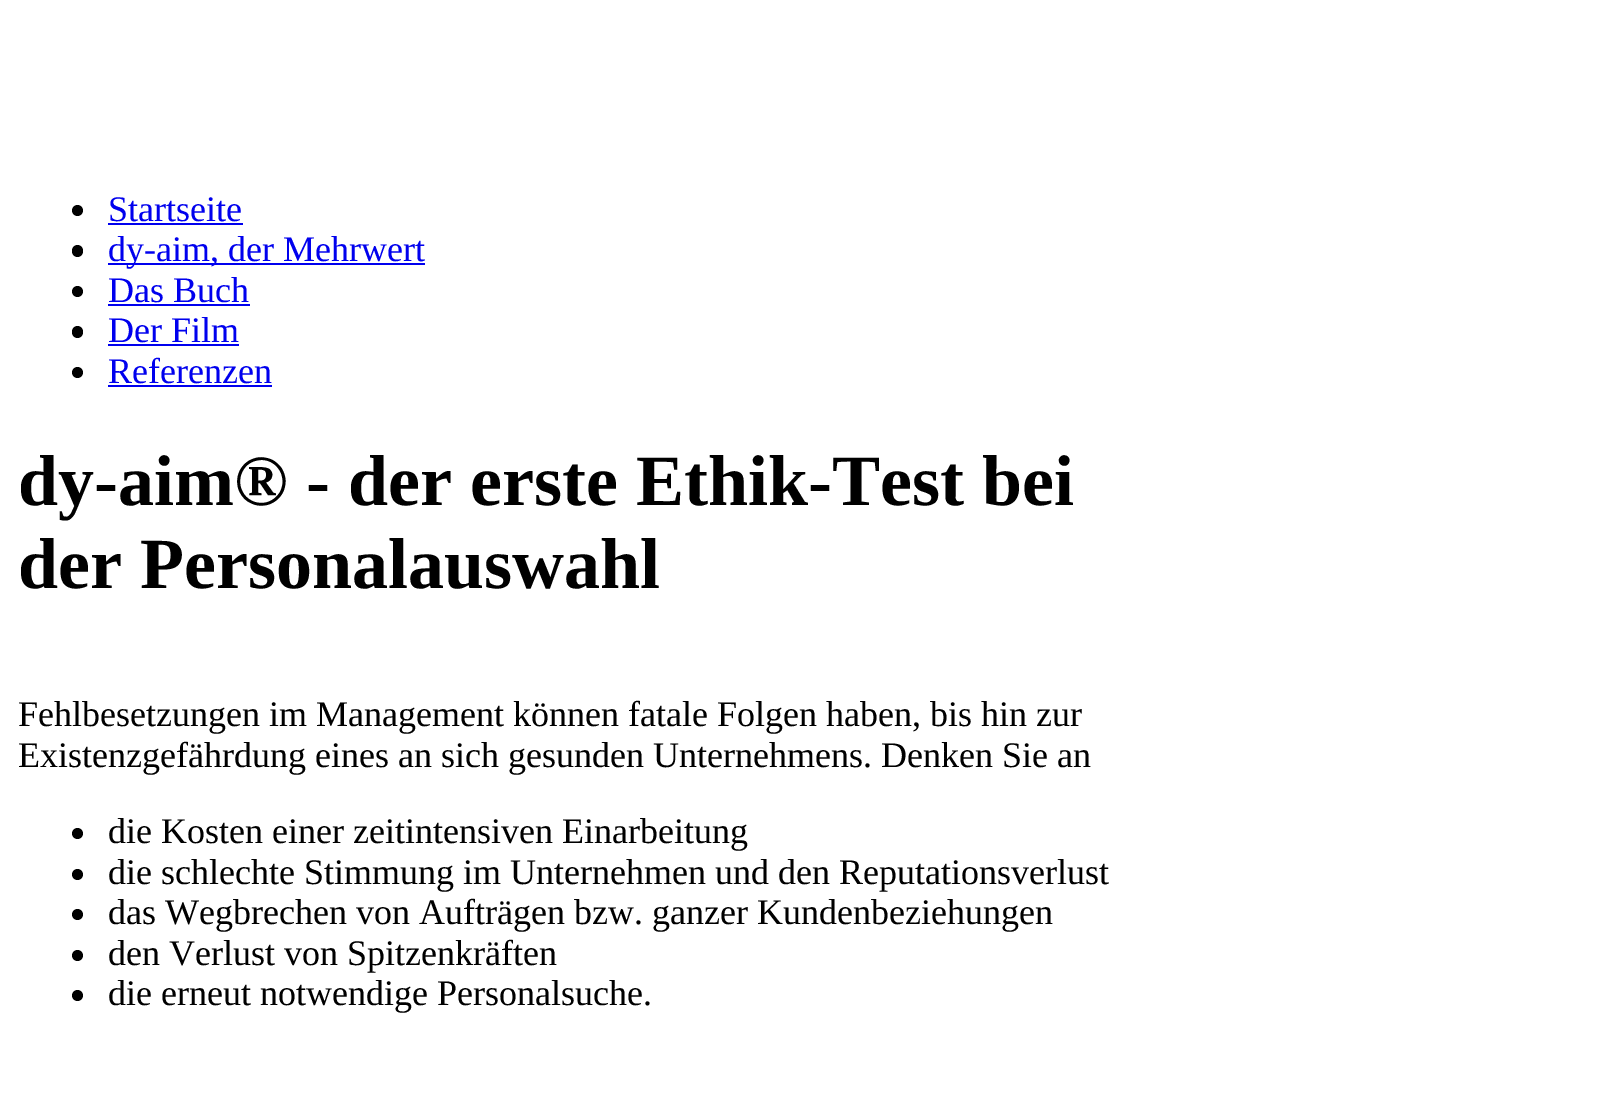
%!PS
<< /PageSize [1623 1093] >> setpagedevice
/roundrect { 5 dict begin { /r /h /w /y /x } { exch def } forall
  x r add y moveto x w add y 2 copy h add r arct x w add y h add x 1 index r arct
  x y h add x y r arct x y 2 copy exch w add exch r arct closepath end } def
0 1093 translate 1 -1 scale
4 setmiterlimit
1 setgray
0 0 1623 1093 rectfill
0 setgray
newpath 77.5 210.5 5.5 0 360 arc closepath fill
/LiberationSerif-Regular [36 0 0 -36 0 0] selectfont
0 0 0.933 setrgbcolor
108 221 moveto (Startseite) show
108 223 135 2 rectfill
0 setgray
72 245 11 12 5.5 roundrect fill
0 0 0.933 setrgbcolor
108 263 317 2 rectfill
108 261 moveto (dy-aim, der Mehrwert) show
0 setgray
newpath 77.5 291.5 5.5 0 360 arc closepath fill
0 0 0.933 setrgbcolor
108 302 moveto (Das Buch) show
108 304 142 2 rectfill
0 setgray
72 326 11 12 5.5 roundrect fill
0 0 0.933 setrgbcolor
108 342 moveto (Der Film) show
108 344 131 2 rectfill
0 setgray
newpath 77.5 372.5 5.5 0 360 arc closepath fill
0 0 0.933 setrgbcolor
108 383 moveto (Referenzen) show
108 385 164 2 rectfill
/LiberationSerif-Bold [72 0 0 -72 0 0] selectfont
0 setgray
18 505 moveto (dy-aim® - der erste Ethik-Test bei) show
18 588 moveto (der Personalauswahl) show
/LiberationSerif-Regular [36 0 0 -36 0 0] selectfont
18 726 moveto (Fehlbesetzungen im Management können fatale Folgen haben, bis hin zur) show
18 767 moveto (Existenzgefährdung eines an sich gesunden Unternehmens. Denken Sie an) show
newpath 77.5 833.5 5.5 0 360 arc closepath fill
108 843 moveto (die Kosten einer zeitintensiven Einarbeitung) show
newpath 77.5 874.5 5.5 0 360 arc closepath fill
108 884 moveto (die schlechte Stimmung im Unternehmen und den Reputationsverlust) show
newpath 77.5 914.5 5.5 0 360 arc closepath fill
108 924 moveto (das Wegbrechen von Aufträgen bzw. ganzer Kundenbeziehungen) show
newpath 77.5 955.5 5.5 0 360 arc closepath fill
108 965 moveto (den Verlust von Spitzenkräften) show
newpath 77.5 995.5 5.5 0 360 arc closepath fill
108 1005 moveto (die erneut notwendige Personalsuche.) show
showpage
